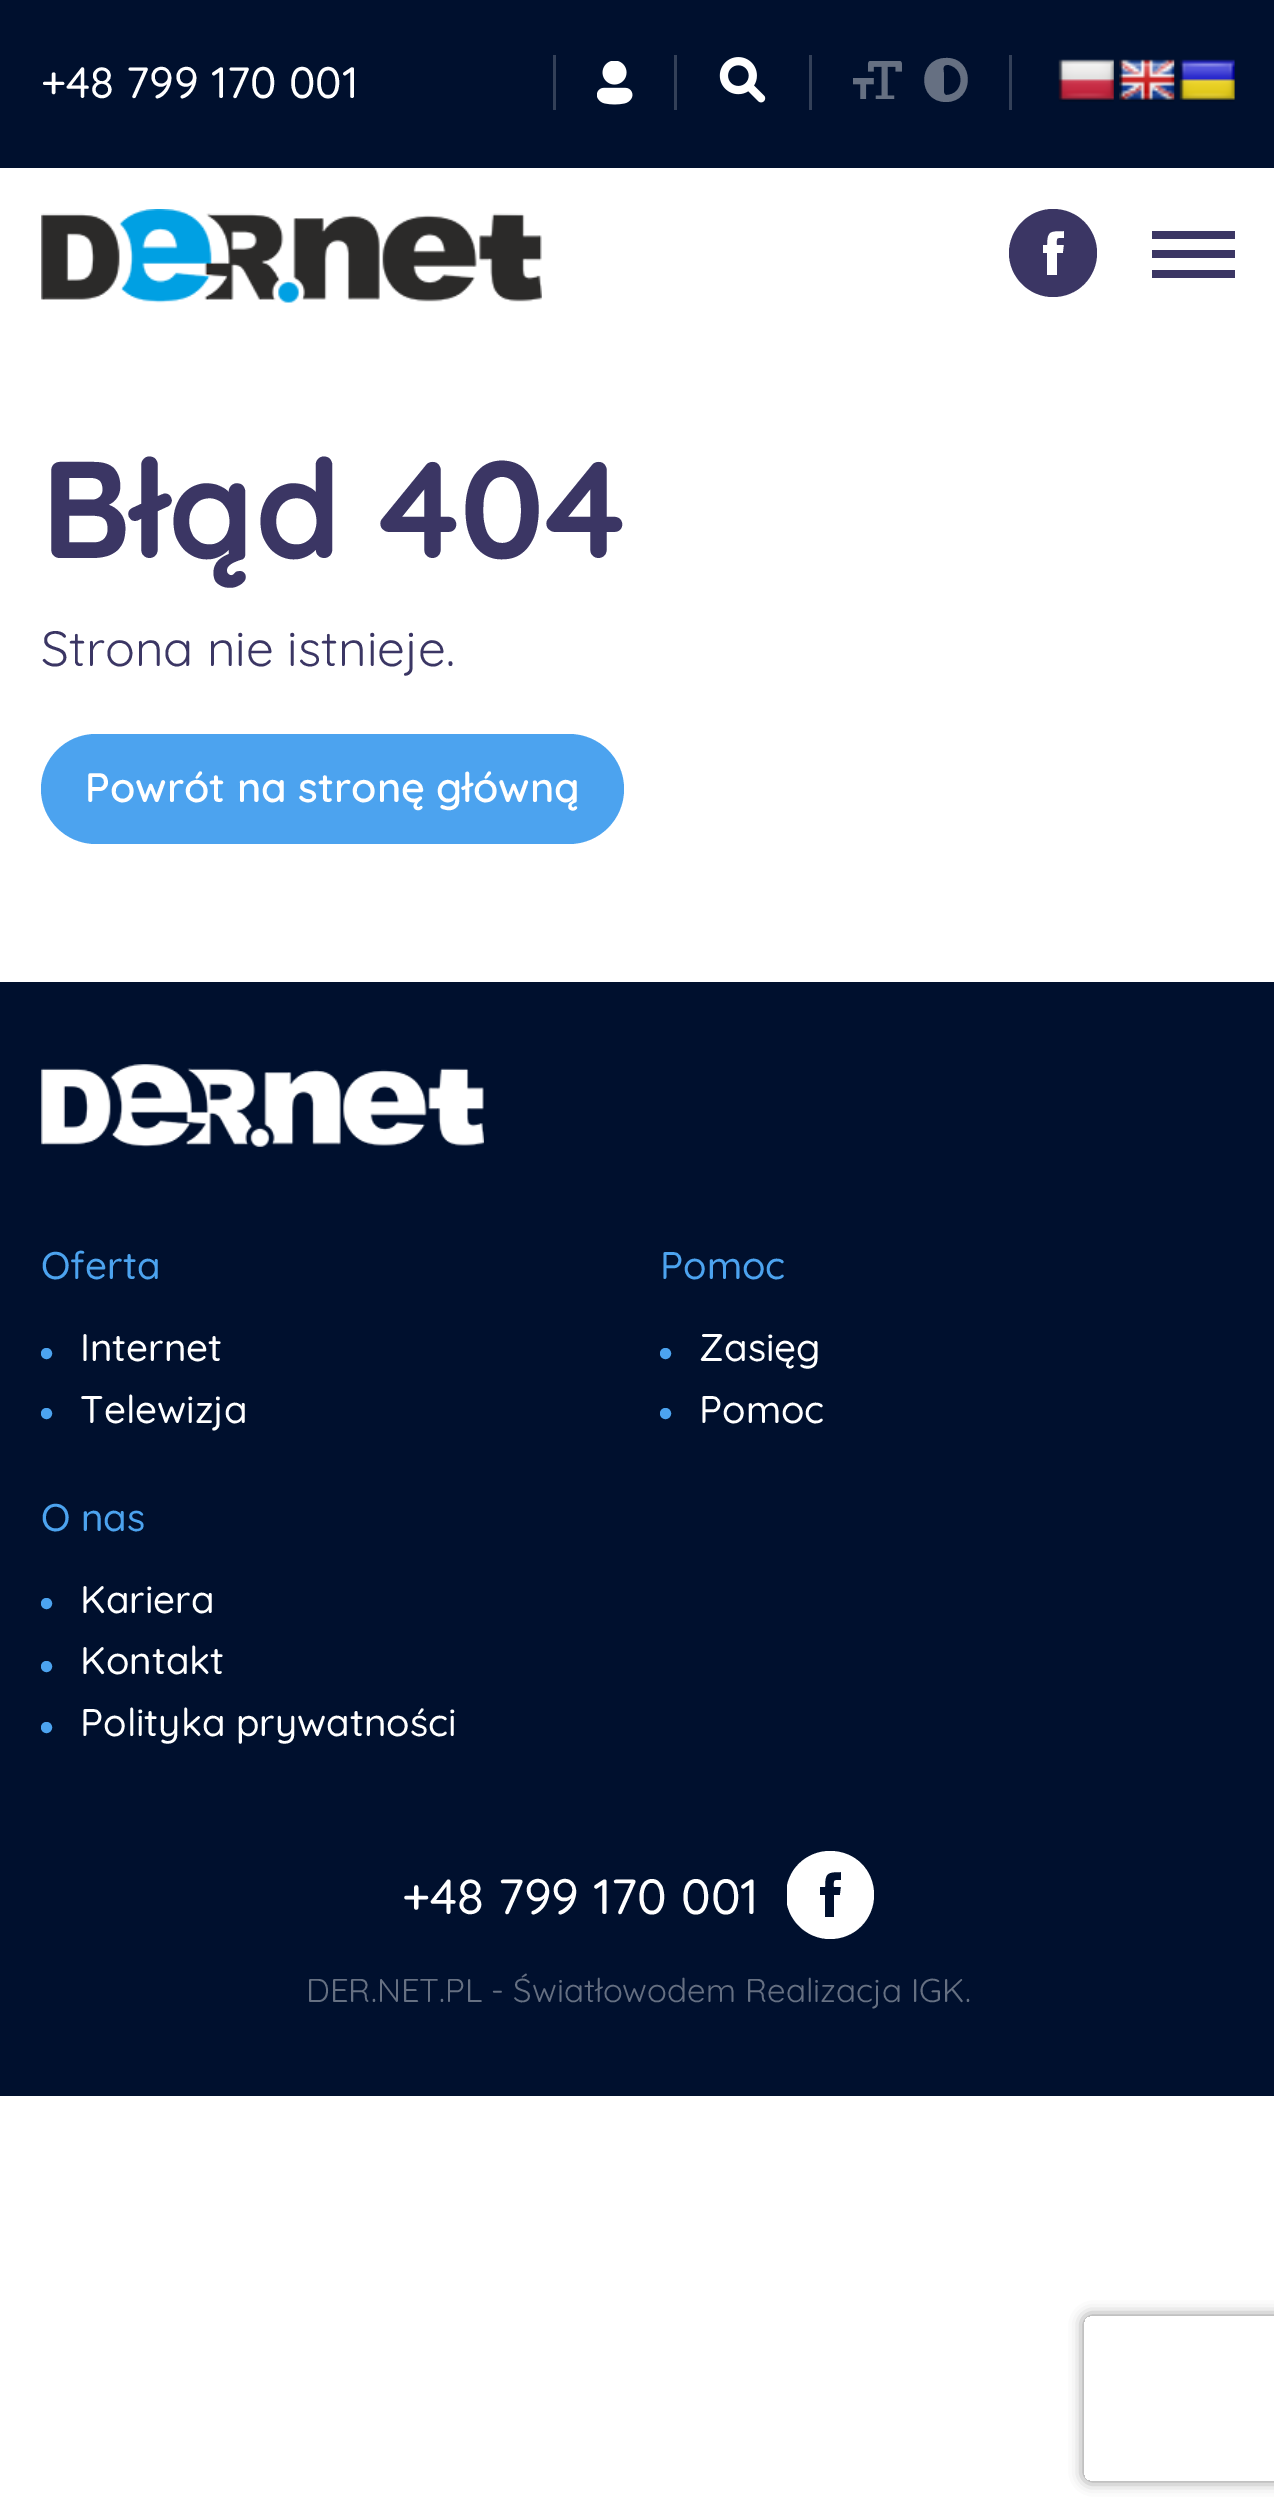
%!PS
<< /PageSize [1274 2518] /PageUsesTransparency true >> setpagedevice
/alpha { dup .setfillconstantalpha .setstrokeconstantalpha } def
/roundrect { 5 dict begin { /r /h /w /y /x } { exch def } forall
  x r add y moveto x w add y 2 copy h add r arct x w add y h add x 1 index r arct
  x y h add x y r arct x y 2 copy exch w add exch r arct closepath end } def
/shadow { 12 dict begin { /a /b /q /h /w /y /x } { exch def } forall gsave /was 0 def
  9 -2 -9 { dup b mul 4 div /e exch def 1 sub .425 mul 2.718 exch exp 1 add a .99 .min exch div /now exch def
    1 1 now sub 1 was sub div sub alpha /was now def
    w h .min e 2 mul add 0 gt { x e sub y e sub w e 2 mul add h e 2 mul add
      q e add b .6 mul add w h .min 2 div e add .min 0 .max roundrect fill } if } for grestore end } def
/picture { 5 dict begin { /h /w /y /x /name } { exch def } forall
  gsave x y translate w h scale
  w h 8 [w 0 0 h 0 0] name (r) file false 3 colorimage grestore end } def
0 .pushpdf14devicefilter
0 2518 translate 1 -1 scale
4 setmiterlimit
1 setgray
0 0 1274 2518 rectfill
0 0.063 0.18 setrgbcolor
0 0 1274 168 rectfill
/Quicksand-Medium [44 0 0 -44 0 0] selectfont
1 setgray
41 98 moveto (+48 799 170 001) show
0.2 0.251 0.345 setrgbcolor
553 55 3 55 rectfill
(img1.rgb) 597 61 36 44 picture
674 55 3 55 rectfill
(img2.rgb) 719 57 47 46 picture
809 55 3 55 rectfill
(img3.rgb) 853 61 49 38 picture
0.4 0.439 0.51 setrgbcolor
newpath 946 58 moveto 917 58 917 102 946 102 curveto 975 102 975 57 946 58 curveto closepath 946 95 moveto 943 94 944 90 944 88 curveto 944 76 lineto 944 70 941 64 949 65 curveto 966 69 964 95 946 95 curveto closepath eofill
0.2 0.251 0.345 setrgbcolor
1009 55 3 55 rectfill
(img4.rgb) 1058 59 56 43 picture
(img5.rgb) 1119 59 56 43 picture
(img6.rgb) 1179 59 56 43 picture
(img7.rgb) 41 209 501 94 picture
0.231 0.212 0.392 setrgbcolor
newpath 1053 209 moveto 1029 209 1009 229 1009 253 curveto 1009 277 1029 297 1053 297 curveto 1078 297 1097 277 1097 253 curveto 1097 229 1078 209 1053 209 curveto closepath 1063 253 moveto 1057 253 lineto 1057 275 lineto 1047 275 lineto 1047 253 lineto 1043 253 lineto 1043 245 lineto 1047 245 lineto 1047 231 1050 231 1064 231 curveto 1064 238 lineto 1056 238 1057 238 1057 245 curveto 1064 245 lineto closepath fill
1152 231 83 8 rectfill
1152 250 83 8 rectfill
1152 270 83 8 rectfill
/Quicksand-Bold [137.5 0 0 -137.5 0 0] selectfont
41 558 moveto (Błąd 404) show
/Quicksand-Regular [49.5 0 0 -49.5 0 0] selectfont
41 666 moveto (Strona nie istnieje.) show
0.298 0.639 0.937 setrgbcolor
41 734 583 110 55 roundrect fill
/Quicksand-SemiBold [41.25 0 0 -41.25 0 0] selectfont
1 setgray
85 802 moveto (Powrót na stronę główną) show
0 0.063 0.18 setrgbcolor
0 982 1274 1114 rectfill
(img8.rgb) 41 1064 443 83 picture
/Quicksand-Medium [38.5 0 0 -38.5 0 0] selectfont
0.298 0.639 0.937 setrgbcolor
41 1279 moveto (Oferta) show
newpath 46.5 1353.5 4 0 360 arc closepath gsave fill grestore
3 setlinewidth
stroke
1 setgray
80 1361 moveto (Internet) show
0.298 0.639 0.937 setrgbcolor
newpath 46.5 1413.5 4 0 360 arc closepath gsave fill grestore
stroke
1 setgray
80 1423 moveto (Telewizja) show
0.298 0.639 0.937 setrgbcolor
660 1279 moveto (Pomoc) show
newpath 665.5 1353.5 4 0 360 arc closepath gsave fill grestore
stroke
1 setgray
699 1361 moveto (Zasięg) show
0.298 0.639 0.937 setrgbcolor
newpath 665.5 1413.5 4 0 360 arc closepath gsave fill grestore
stroke
1 setgray
699 1423 moveto (Pomoc) show
0.298 0.639 0.937 setrgbcolor
41 1531 moveto (O nas) show
newpath 46.5 1603.5 4 0 360 arc closepath gsave fill grestore
stroke
1 setgray
80 1613 moveto (Kariera) show
0.298 0.639 0.937 setrgbcolor
newpath 46.5 1666.5 4 0 360 arc closepath gsave fill grestore
stroke
1 setgray
80 1674 moveto (Kontakt) show
0.298 0.639 0.937 setrgbcolor
newpath 46.5 1727.5 4 0 360 arc closepath gsave fill grestore
stroke
1 setgray
80 1736 moveto (Polityka prywatności) show
/Quicksand-Medium [49.5 0 0 -49.5 0 0] selectfont
402 1914 moveto (+48 799 170 001) show
gsave
787 1851 88 88 rectclip
newpath 830 1851 moveto 806 1851 786 1870 786 1895 curveto 786 1919 806 1939 830 1939 curveto 855 1939 874 1919 874 1895 curveto 874 1870 855 1851 830 1851 curveto closepath 840 1895 moveto 834 1895 lineto 834 1917 lineto 825 1917 lineto 825 1895 lineto 820 1895 lineto 820 1887 lineto 825 1887 lineto 825 1873 827 1872 841 1872 curveto 841 1880 lineto 833 1880 834 1880 834 1887 curveto 841 1887 lineto closepath fill
grestore
/Quicksand-Regular [33 0 0 -33 0 0] selectfont
0.4 0.439 0.51 setrgbcolor
306 2002 moveto (DER.NET.PL - Światłowodem Realizacja IGK.) show
gsave
newpath 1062 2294 moveto 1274 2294 lineto 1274 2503 lineto 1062 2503 lineto closepath 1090 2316 moveto 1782 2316 lineto 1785.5 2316 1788 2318.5 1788 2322 curveto 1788 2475 lineto 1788 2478.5 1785.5 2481 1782 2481 curveto 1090 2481 lineto 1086.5 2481 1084 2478.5 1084 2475 curveto 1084 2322 lineto 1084 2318.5 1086.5 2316 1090 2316 curveto closepath eoclip newpath
0.502 setgray
1084 2316 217 165 6 7 1 shadow
grestore
.poppdf14devicefilter showpage
